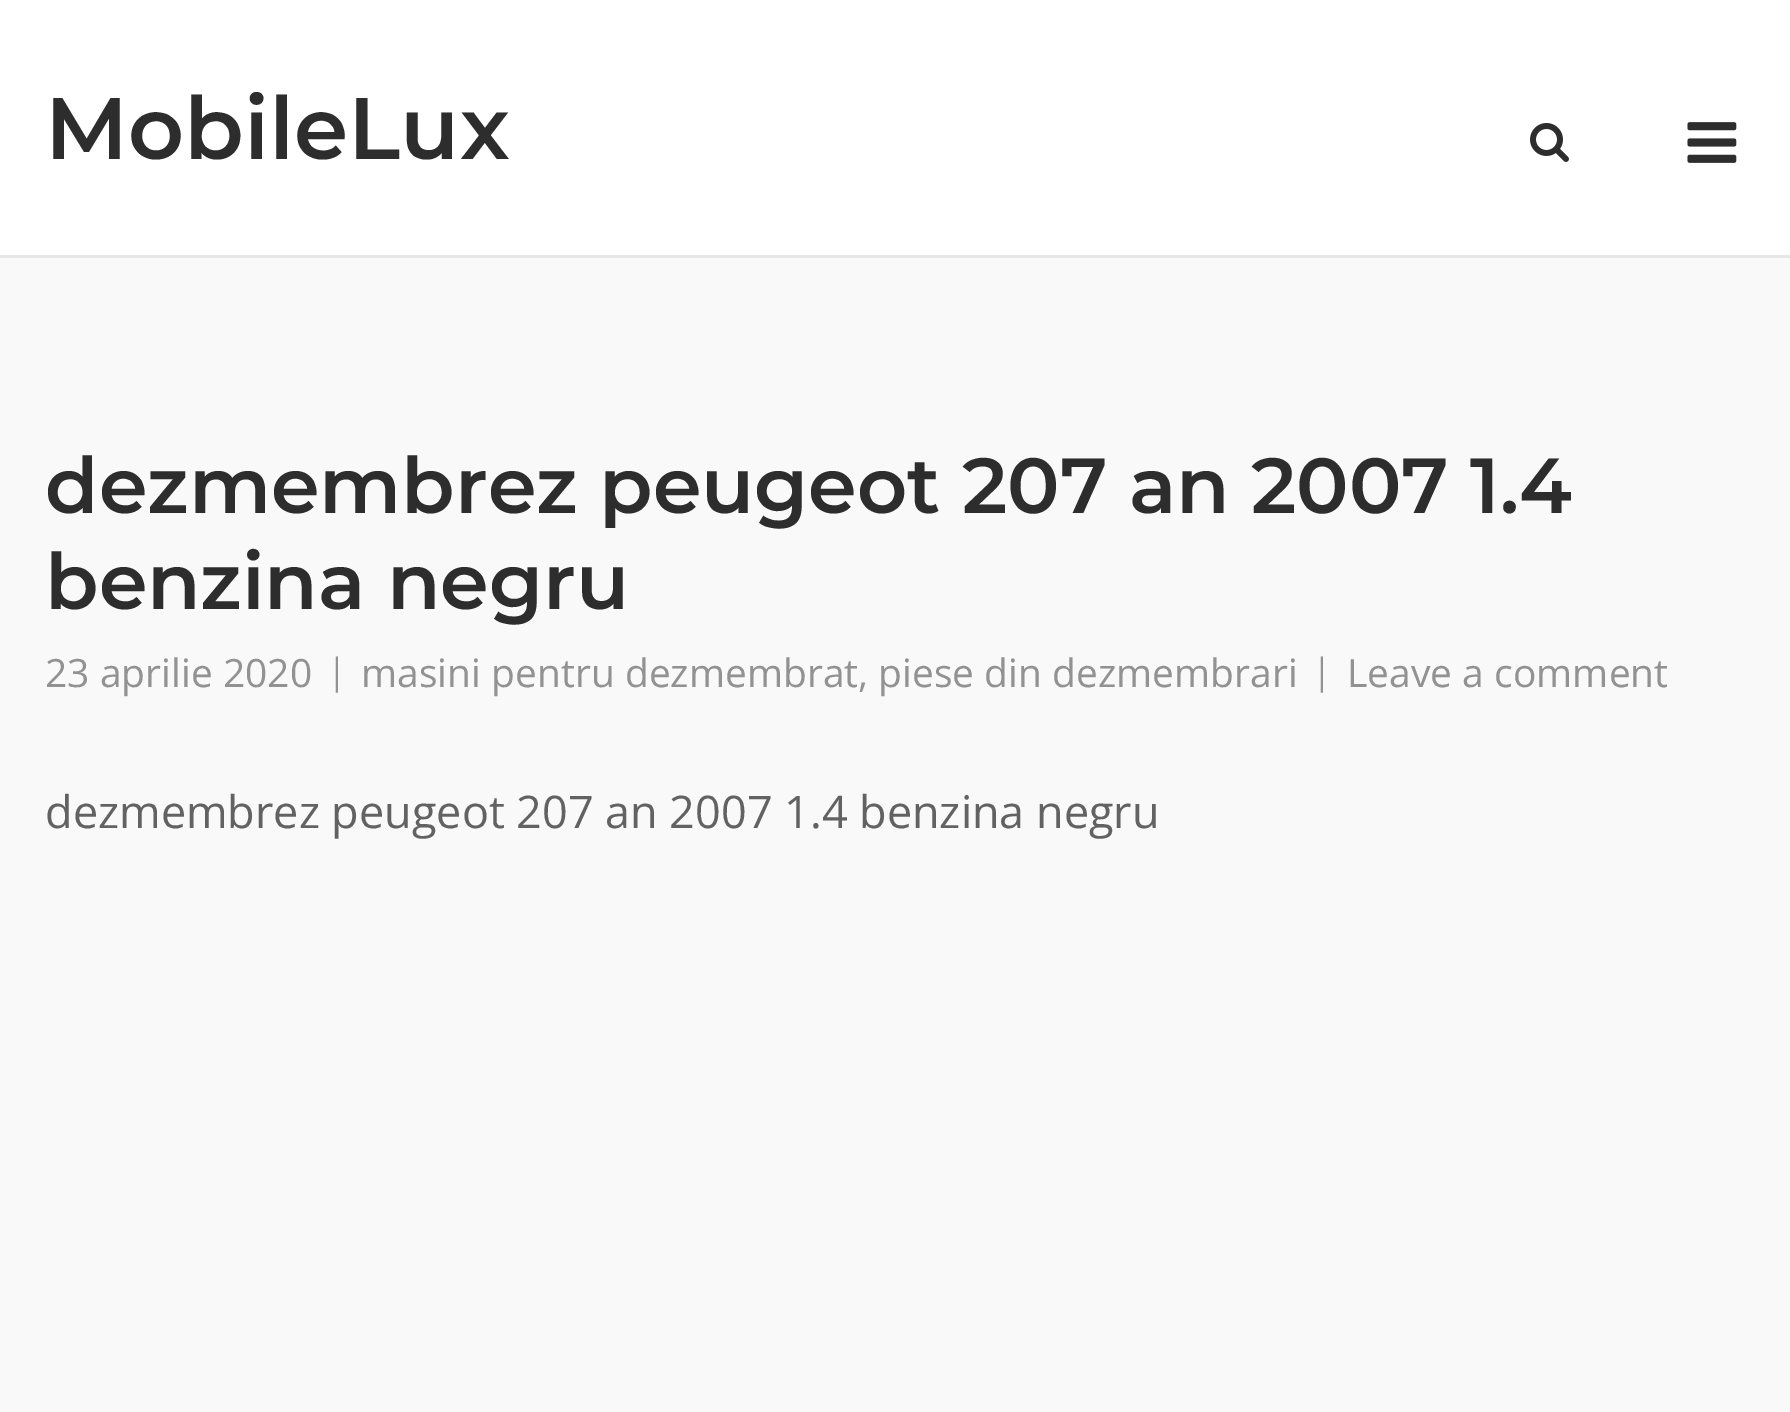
%!PS
<< /PageSize [1790 1412] >> setpagedevice
/picture { 5 dict begin { /h /w /y /x /name } { exch def } forall
  gsave x y translate w h scale
  w h 8 [w 0 0 h 0 0] name (r) file false 3 colorimage grestore end } def
0 1412 translate 1 -1 scale
4 setmiterlimit
0.976 setgray
0 0 1790 1412 rectfill
1 setgray
0 0 1790 255 rectfill
0.902 setgray
0 255 1790 3 rectfill
/Montserrat-SemiBold [87 0 0 -87 0 0] selectfont
0.176 setgray
45 159 moveto (MobileLux) show
(img1.rgb) 1530 123 39 39 picture
(img2.rgb) 1687 122 50 41 picture
/Montserrat-SemiBold [78 0 0 -78 0 0] selectfont
45 513 moveto (dezmembrez peugeot 207 an 2007 1.4) show
45 609 moveto (benzina negru) show
/OpenSans-Regular [39 0 0 -39 0 0] selectfont
0.573 setgray
45 687 moveto (23 aprilie 2020) show
/OpenSans-Regular [36 0 0 -36 0 0] selectfont
327 684 moveto (|) show
/OpenSans-Regular [39 0 0 -39 0 0] selectfont
361 687 moveto (masini pentru dezmembrat) show
858 687 moveto (, piese din dezmembrari) show
/OpenSans-Regular [36 0 0 -36 0 0] selectfont
1312 684 moveto (|) show
/OpenSans-Regular [39 0 0 -39 0 0] selectfont
1347 687 moveto (Leave a comment) show
/OpenSans-Regular [45 0 0 -45 0 0] selectfont
0.384 setgray
45 828 moveto (dezmembrez peugeot 207 an 2007 1.4 benzina negru) show
showpage
